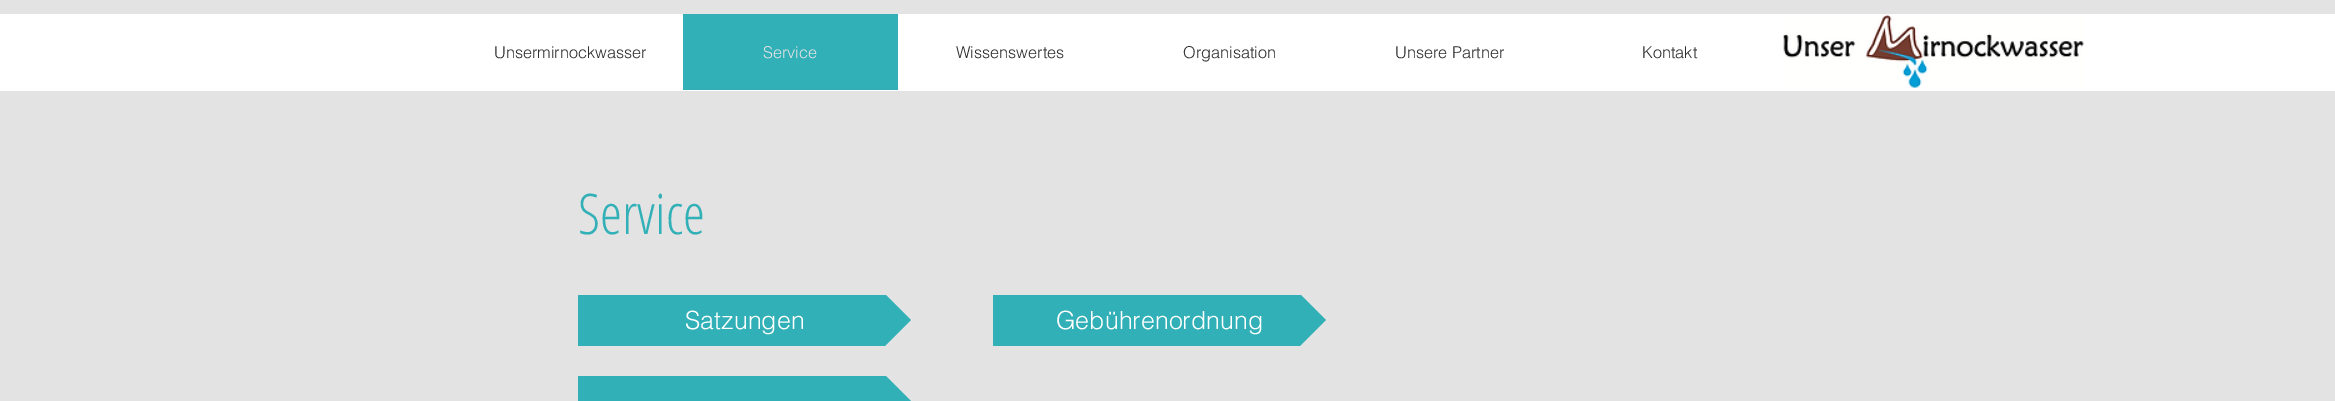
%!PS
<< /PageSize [2335 401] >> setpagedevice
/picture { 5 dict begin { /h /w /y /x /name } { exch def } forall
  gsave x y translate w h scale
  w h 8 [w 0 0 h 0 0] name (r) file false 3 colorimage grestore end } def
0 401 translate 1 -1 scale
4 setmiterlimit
0.89 setgray
0 0 2335 401 rectfill
1 setgray
0 14 2335 77 rectfill
/helvetica-Light [16.25 0 0 -16.25 0 0] selectfont
0.176 setgray
494 58 moveto (Unsermirnockwasser) show
0.192 0.69 0.718 setrgbcolor
683 14 215 76 rectfill
0.89 setgray
763 58 moveto (Service) show
0.176 setgray
956 58 moveto (Wissenswertes) show
1183 58 moveto (Organisation) show
1395 58 moveto (Unsere Partner) show
1642 58 moveto (Kontakt) show
(img1.rgb) 1783 14 301 75 picture
/OpenSansCondensed-Light [56 0 0 -56 0 0] selectfont
0.192 0.69 0.718 setrgbcolor
578 234 moveto (Service) show
578 295 271 51 rectfill
gsave
578 295 333 51 rectclip
newpath 911 320 moveto 849 320 lineto 849 258 lineto closepath 849 320 moveto 911 320 lineto 849 382 lineto closepath fill
grestore
/helvetica-Light [25 0 0 -25 0 0] selectfont
1 setgray
685 329 moveto (Satzungen) show
0.192 0.69 0.718 setrgbcolor
993 295 271 51 rectfill
gsave
993 295 333 51 rectclip
newpath 1326 320 moveto 1264 320 lineto 1264 258 lineto closepath 1264 320 moveto 1326 320 lineto 1264 382 lineto closepath fill
grestore
1 setgray
1056 329 moveto (Gebührenordnung) show
0.192 0.69 0.718 setrgbcolor
578 376 271 25 rectfill
gsave
578 376 333 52 rectclip
newpath 911 401 moveto 849 401 lineto 849 339 lineto closepath fill
grestore
showpage
